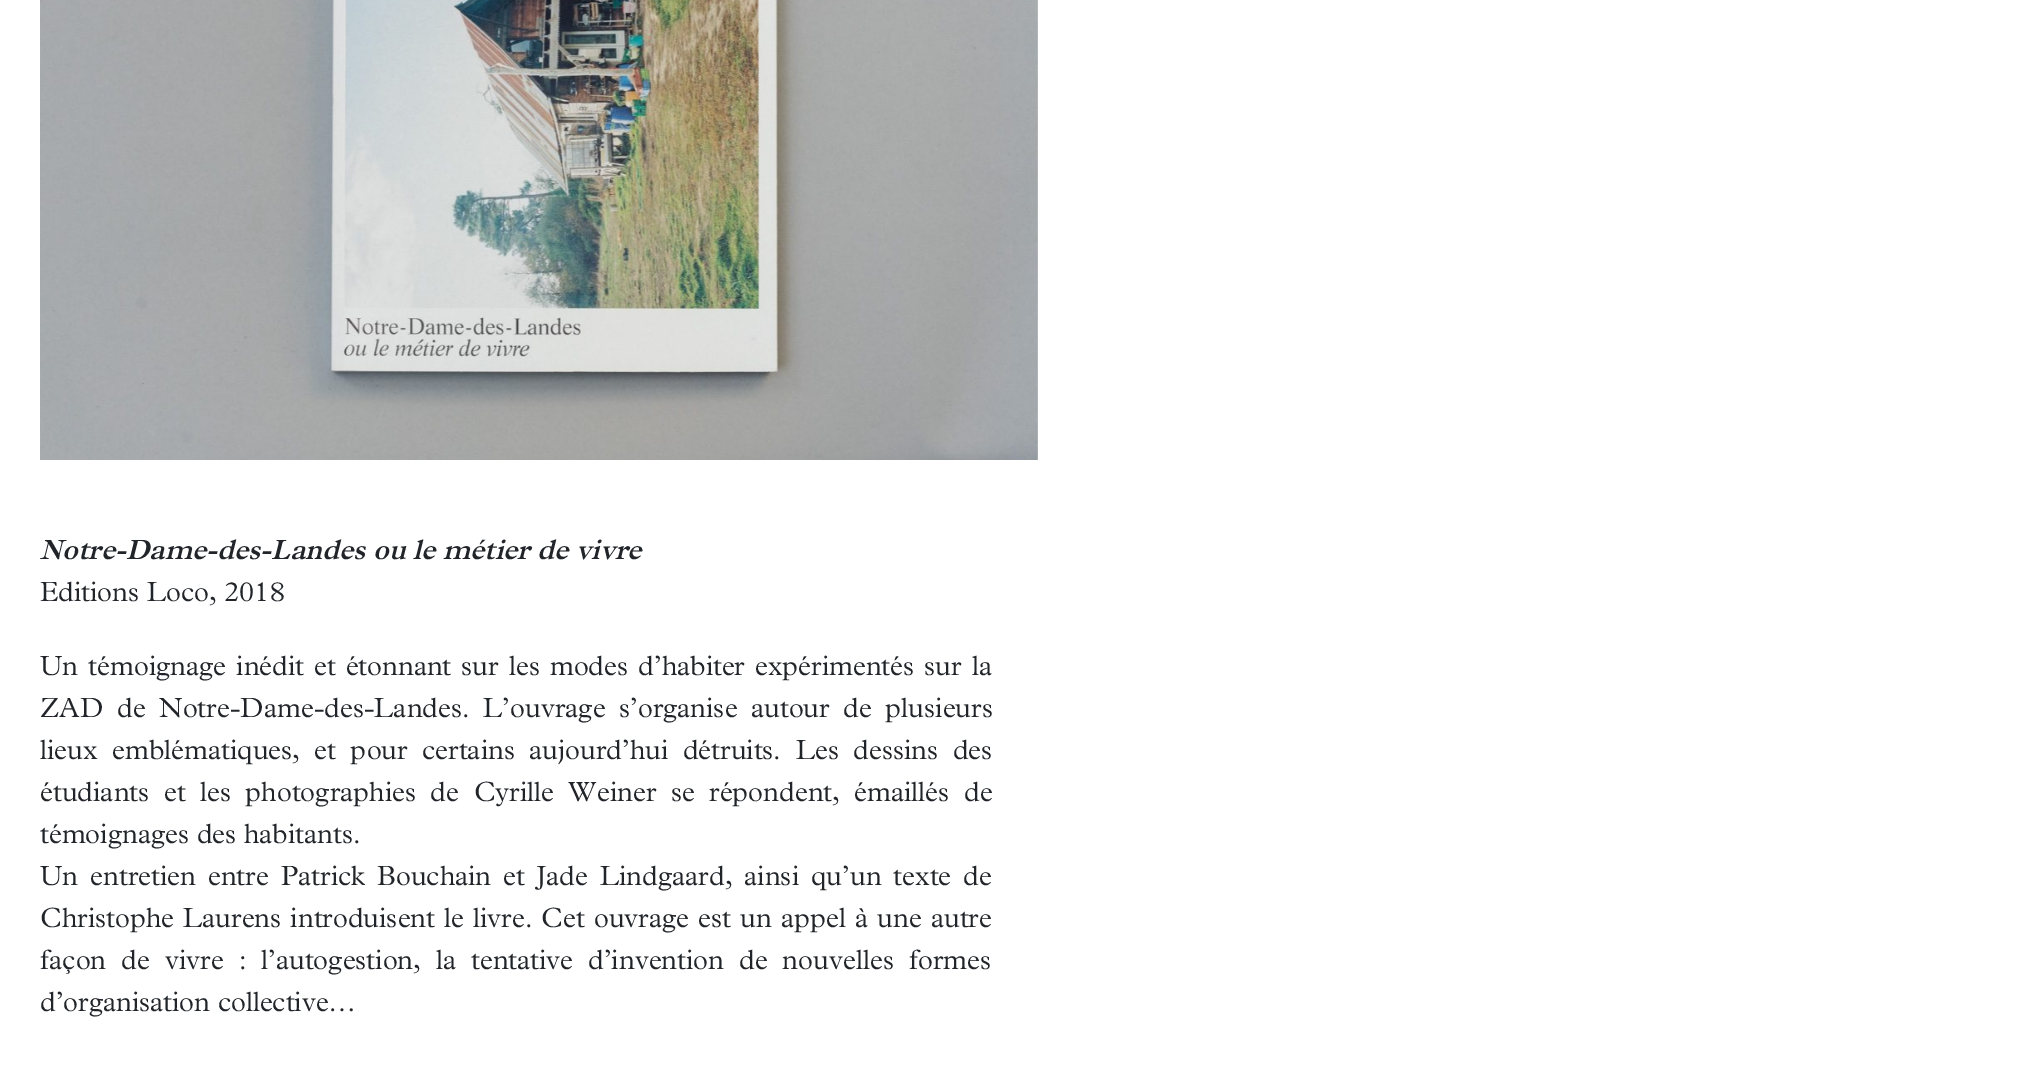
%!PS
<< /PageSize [2032 1068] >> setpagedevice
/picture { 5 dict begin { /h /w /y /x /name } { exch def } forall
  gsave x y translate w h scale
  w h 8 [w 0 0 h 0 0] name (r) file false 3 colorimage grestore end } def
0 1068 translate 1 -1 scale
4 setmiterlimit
1 setgray
0 0 2032 1068 rectfill
(img1.rgb) 40 0 998 460 picture
/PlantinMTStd-SemiBoldItalic [28 0 0 -28 0 0] selectfont
0.129 0.145 0.161 setrgbcolor
40 559 moveto (Notre-Dame-des-Landes ou le métier de vivre) show
/PlantinMTStd-Light [28 0 0 -28 0 0] selectfont
40 601 moveto (Editions Loco, 2018) show
40 675 moveto 2.5 0 32 (Un témoignage inédit et étonnant sur les modes d’habiter expérimentés sur la) widthshow
40 717 moveto 6 0 32 (ZAD de Notre-Dame-des-Landes. L’ouvrage s’organise autour de plusieurs) widthshow
40 759 moveto 7 0 32 (lieux emblématiques, et pour certains aujourd’hui détruits. Les dessins des) widthshow
40 801 moveto 7 0 32 (étudiants et les photographies de Cyrille Weiner se répondent, émaillés de) widthshow
40 843 moveto (témoignages des habitants.) show
40 885 moveto 4.6 0 32 (Un entretien entre Patrick Bouchain et Jade Lindgaard, ainsi qu’un texte de) widthshow
40 927 moveto 1.6 0 32 (Christophe Laurens introduisent le livre. Cet ouvrage est un appel à une autre) widthshow
40 969 moveto 7.5 0 32 (façon de vivre : l’autogestion, la tentative d’invention de nouvelles formes) widthshow
40 1011 moveto (d’organisation collective…) show
showpage
